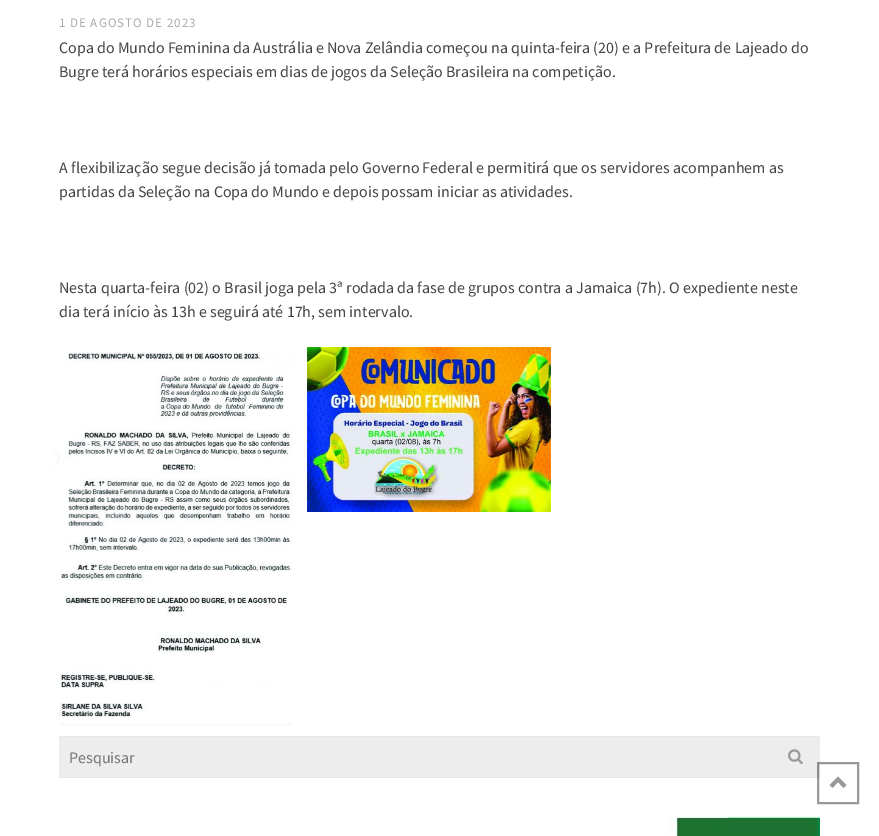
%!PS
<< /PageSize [879 836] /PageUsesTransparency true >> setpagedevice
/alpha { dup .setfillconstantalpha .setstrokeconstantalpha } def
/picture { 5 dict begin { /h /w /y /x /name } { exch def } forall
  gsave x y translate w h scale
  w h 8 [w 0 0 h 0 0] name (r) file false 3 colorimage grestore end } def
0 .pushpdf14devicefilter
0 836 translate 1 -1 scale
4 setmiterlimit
1 setgray
0 0 879 836 rectfill
/SourceSansPro-Regular [13 0 0 -13 0 0] selectfont
0.667 setgray
59 27 moveto 1 0 (1 DE AGOSTO DE 2023) ashow
/SourceSansPro-Regular [16 0 0 -16 0 0] selectfont
0.267 setgray
59 53 moveto (Copa do Mundo Feminina da Austrália e Nova Zelândia começou na quinta-feira \(20\) e a Prefeitura de Lajeado do) show
59 77 moveto (Bugre terá horários especiais em dias de jogos da Seleção Brasileira na competição.) show
59 173 moveto (A flexibilização segue decisão já tomada pelo Governo Federal e permitirá que os servidores acompanhem as) show
59 197 moveto (partidas da Seleção na Copa do Mundo e depois possam iniciar as atividades.) show
59 293 moveto (Nesta quarta-feira \(02\) o Brasil joga pela 3ª rodada da fase de grupos contra a Jamaica \(7h\). O expediente neste) show
59 317 moveto (dia terá início às 13h e seguirá até 17h, sem intervalo.) show
(img1.rgb) 54 352 239 374 picture
(img2.rgb) 307 347 244 165 picture
0.902 setgray
59 736 761 1 rectfill
59 777 761 1 rectfill
0.929 setgray
59 737 761 40 rectfill
0.459 setgray
69 763 moveto (Pesquisar) show
(img3.rgb) 788 749 15 16 picture
(img4.rgb) 669 817 151 19 picture
0.4 alpha
0 setgray
2 setlinewidth
818 763 40 40 rectstroke
1 alpha
0.6 setgray
newpath 829.5 785 moveto 838 776.5 lineto 838 782 lineto 832.5 788 lineto closepath 838 776.5 moveto 846.5 785 lineto 843.5 788 lineto 838 782 lineto closepath fill
.poppdf14devicefilter showpage
